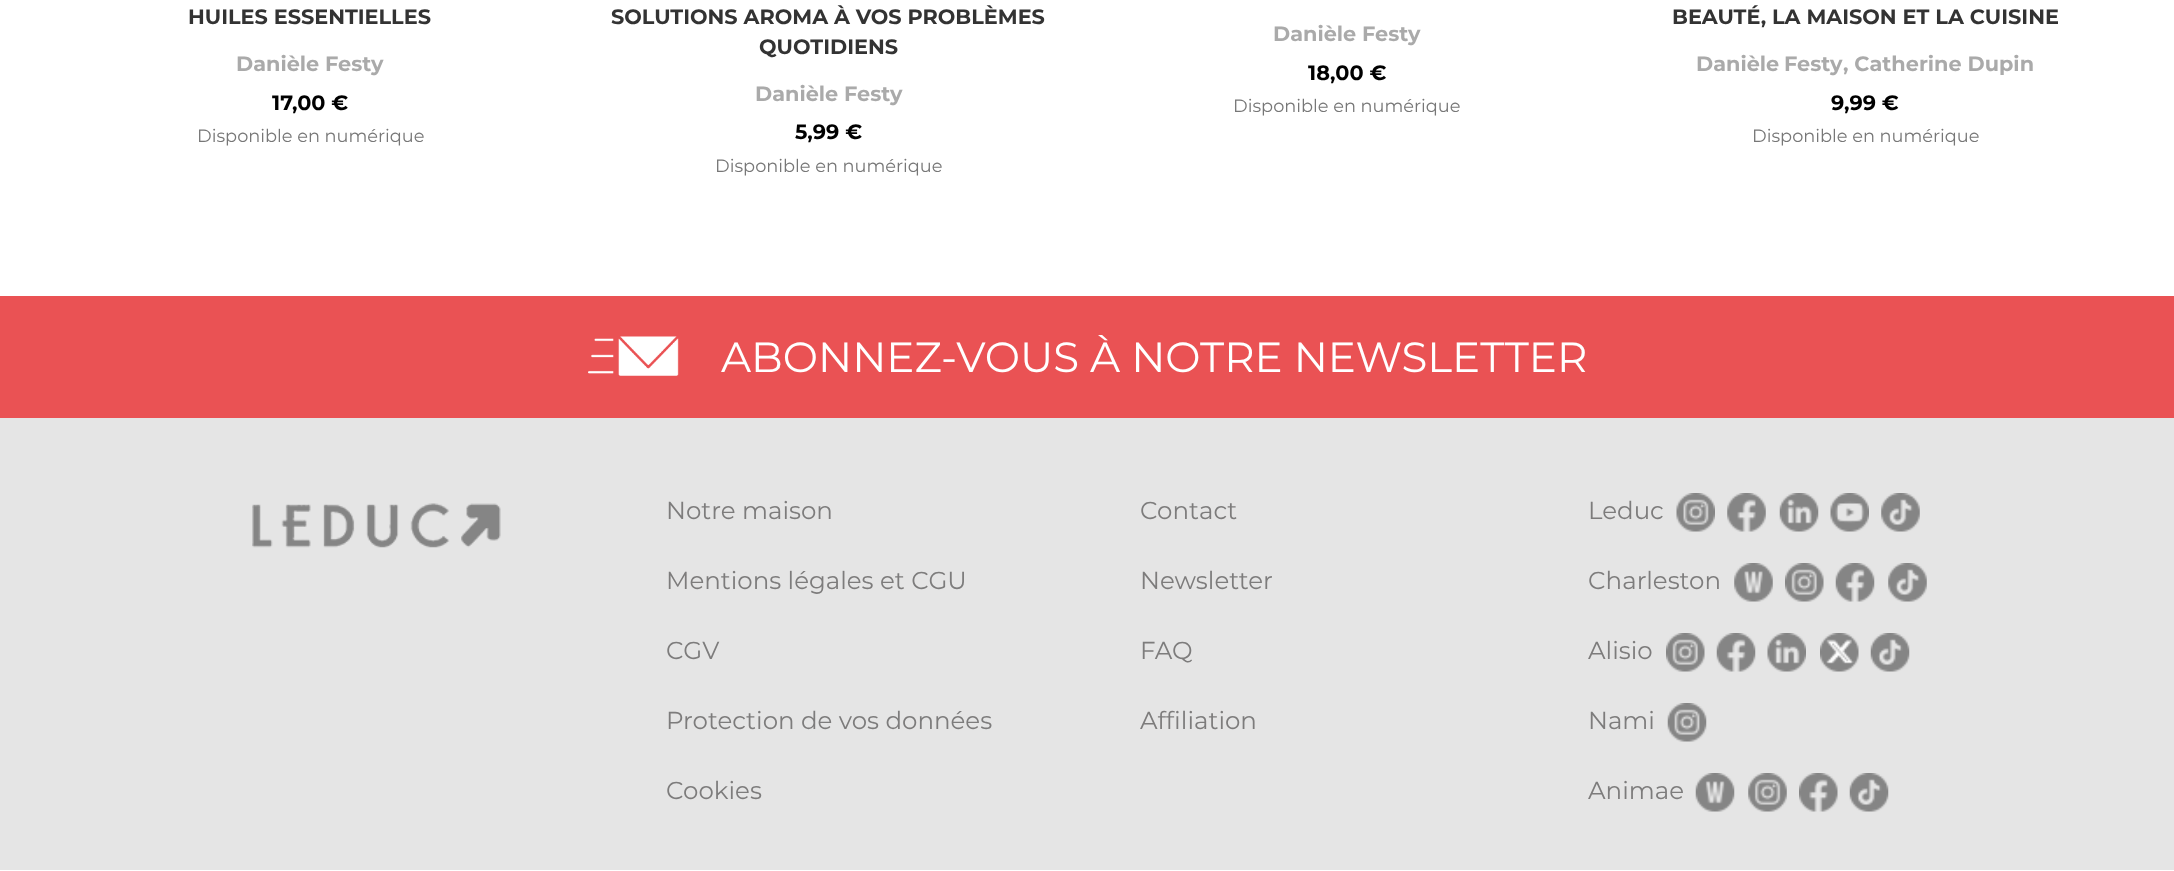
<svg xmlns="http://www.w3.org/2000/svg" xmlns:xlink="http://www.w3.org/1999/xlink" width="2174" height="871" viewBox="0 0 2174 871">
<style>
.cls-1{font:bold 20.8px Montserrat;fill:#333333}
.cls-2{font:bold 20.8px Montserrat;fill:#aaaaaa}
.cls-3{font:bold 20.8px Montserrat;fill:#000000}
.cls-4{font:17.75px Montserrat;fill:#777777}
.cls-5{font:42px Montserrat;fill:#ffffff}
.cls-6{font:24.5px Montserrat;fill:#7d7c7c}
</style>
<rect width="100%" height="100%" fill="#ffffff"/>
<rect fill="#ea5254" x="0" y="296" width="2174" height="122"/>
<image xlink:href="image0.png" x="588" y="336" width="91" height="40"/>
<rect fill="#e5e5e5" x="0" y="418" width="2174" height="452"/>
<image xlink:href="image1.png" x="252" y="503" width="249" height="45"/>
<image xlink:href="image2.png" x="1676" y="493" width="39" height="39"/>
<image xlink:href="image3.png" x="1727" y="493" width="39" height="39"/>
<image xlink:href="image4.png" x="1779" y="493" width="40" height="39"/>
<image xlink:href="image5.png" x="1830" y="493" width="39" height="39"/>
<image xlink:href="image6.png" x="1881" y="493" width="39" height="39"/>
<image xlink:href="image7.png" x="1734" y="563" width="39" height="39"/>
<image xlink:href="image8.png" x="1785" y="563" width="39" height="39"/>
<image xlink:href="image9.png" x="1835" y="563" width="40" height="39"/>
<image xlink:href="image6.png" x="1888" y="563" width="39" height="39"/>
<image xlink:href="image10.png" x="1666" y="633" width="39" height="39"/>
<image xlink:href="image9.png" x="1716" y="633" width="40" height="39"/>
<image xlink:href="image11.png" x="1767" y="633" width="39" height="39"/>
<image xlink:href="image12.png" x="1820" y="633" width="39" height="39"/>
<image xlink:href="image13.png" x="1870" y="633" width="40" height="39"/>
<image xlink:href="image14.png" x="1667" y="703" width="40" height="39"/>
<image xlink:href="image15.png" x="1695" y="773" width="40" height="39"/>
<image xlink:href="image16.png" x="1748" y="773" width="39" height="39"/>
<image xlink:href="image17.png" x="1799" y="773" width="39" height="39"/>
<image xlink:href="image18.png" x="1849" y="773" width="40" height="39"/>
<text class="cls-1" x="188" y="24">HUILES ESSENTIELLES</text>
<text class="cls-2" x="236" y="71">Danièle Festy</text>
<text class="cls-3" x="272" y="110">17,00 €</text>
<text class="cls-4" x="197" y="142">Disponible en numérique</text>
<text class="cls-1" x="611" y="24">SOLUTIONS AROMA À VOS PROBLÈMES</text>
<text class="cls-1" x="759" y="54">QUOTIDIENS</text>
<text class="cls-2" x="755" y="101">Danièle Festy</text>
<text class="cls-3" x="795" y="139">5,99 €</text>
<text class="cls-4" x="715" y="172">Disponible en numérique</text>
<text class="cls-2" x="1273" y="41">Danièle Festy</text>
<text class="cls-3" x="1308" y="80">18,00 €</text>
<text class="cls-4" x="1233" y="112">Disponible en numérique</text>
<text class="cls-1" x="1672" y="24">BEAUTÉ, LA MAISON ET LA CUISINE</text>
<text class="cls-2" x="1696" y="71" word-spacing="-1">Danièle Festy</text>
<text class="cls-2" x="1843" y="71">, Catherine Dupin</text>
<text class="cls-3" x="1831" y="110">9,99 €</text>
<text class="cls-4" x="1752" y="142">Disponible en numérique</text>
<text class="cls-5" x="721" y="372">ABONNEZ-VOUS À NOTRE NEWSLETTER</text>
<text class="cls-6" x="666" y="519">Notre maison</text>
<text class="cls-6" x="666" y="589">Mentions légales et CGU</text>
<text class="cls-6" x="666" y="659">CGV</text>
<text class="cls-6" x="666" y="729">Protection de vos données</text>
<text class="cls-6" x="666" y="799">Cookies</text>
<text class="cls-6" x="1140" y="519">Contact</text>
<text class="cls-6" x="1140" y="589">Newsletter</text>
<text class="cls-6" x="1140" y="659">FAQ</text>
<text class="cls-6" x="1140" y="729">Affiliation</text>
<text class="cls-6" x="1588" y="519">Leduc</text>
<text class="cls-6" x="1588" y="589">Charleston</text>
<text class="cls-6" x="1588" y="659">Alisio</text>
<text class="cls-6" x="1588" y="729">Nami</text>
<text class="cls-6" x="1588" y="799">Animae</text>
</svg>
